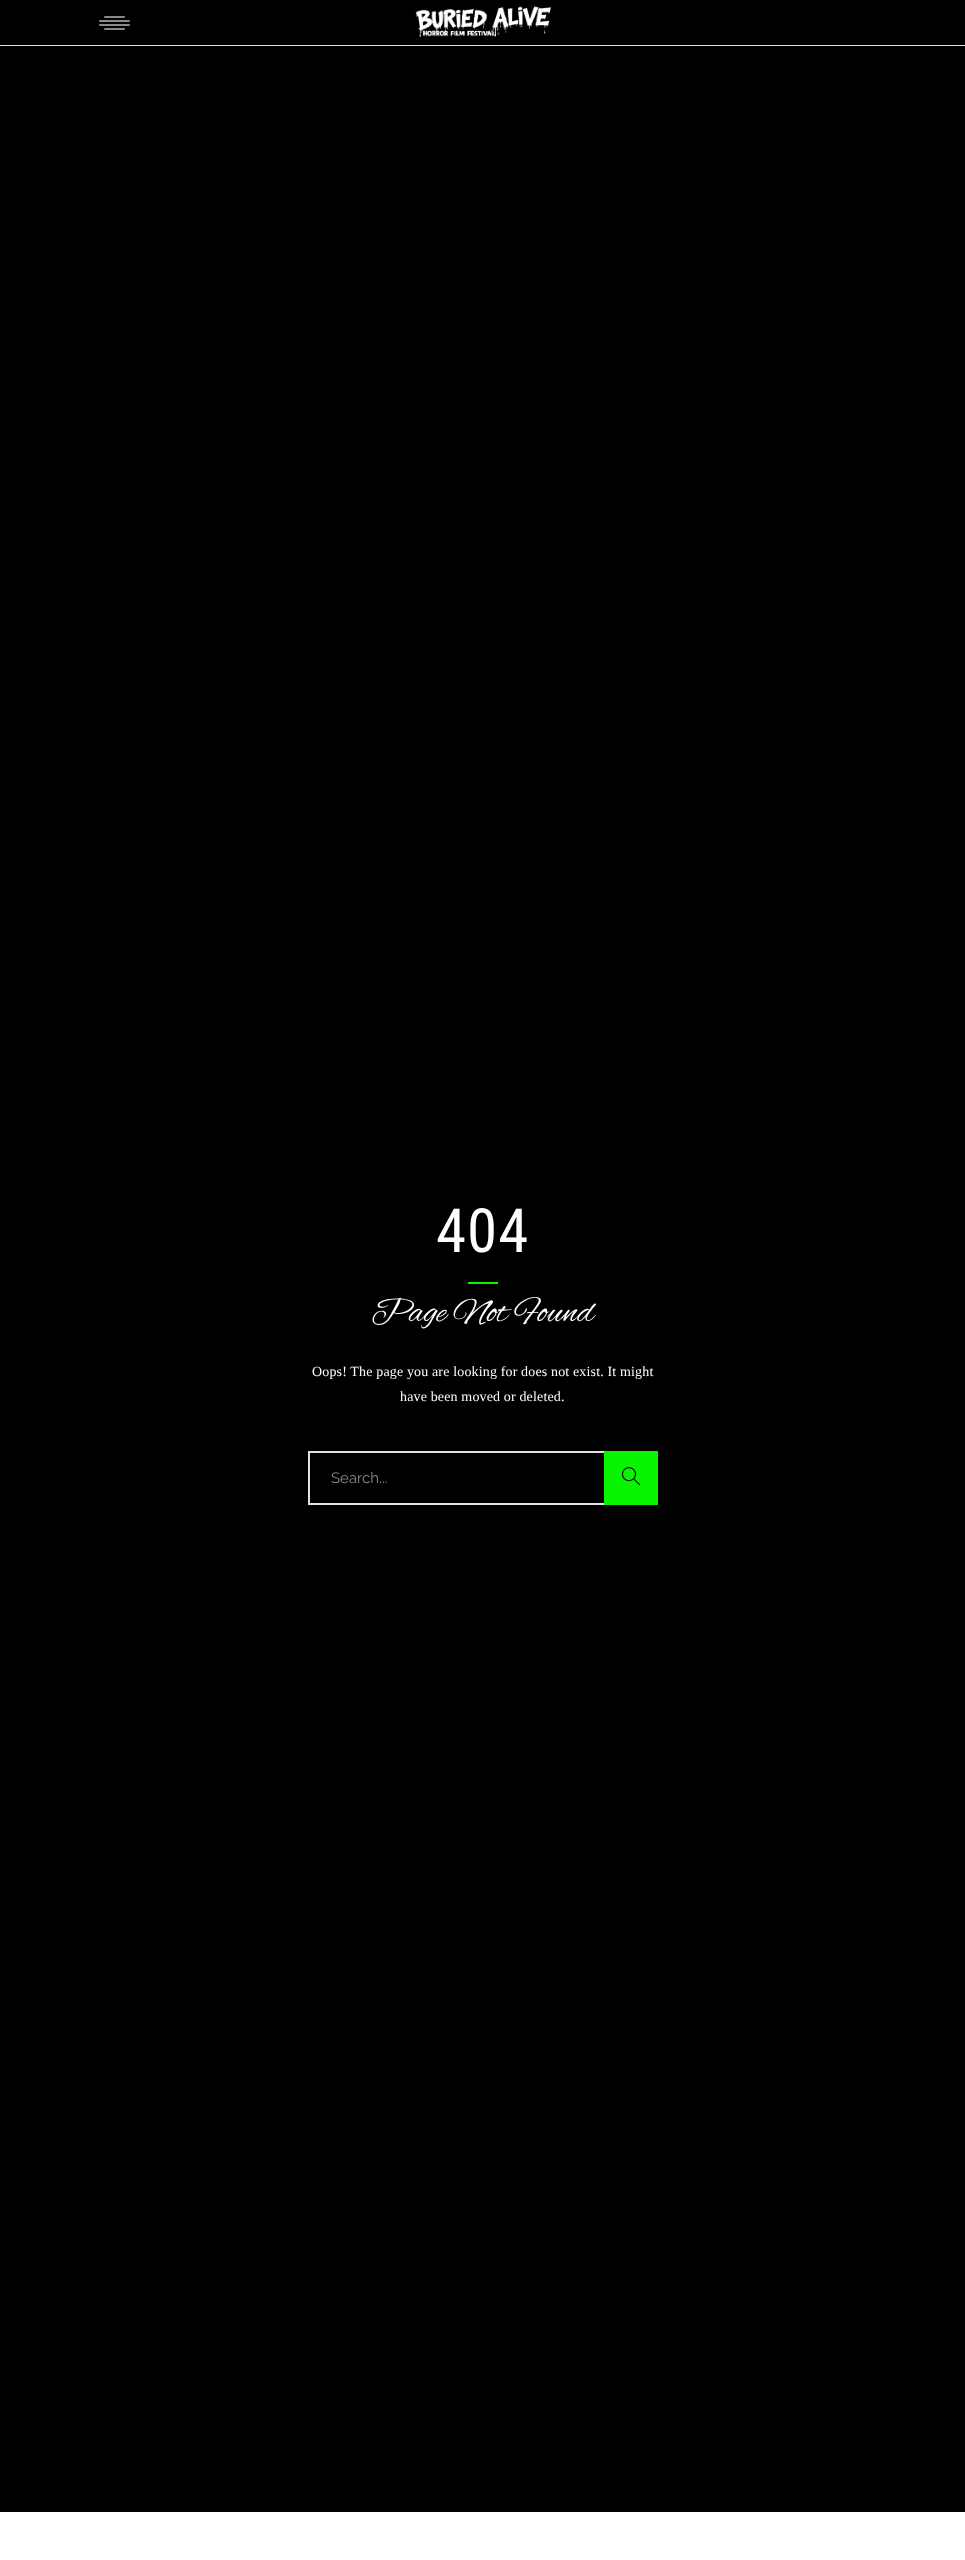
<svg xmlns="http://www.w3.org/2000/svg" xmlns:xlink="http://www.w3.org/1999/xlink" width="965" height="2560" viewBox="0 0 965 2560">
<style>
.cls-1{font:61px Roboto Condensed;letter-spacing:1px;fill:#ffffff}
.cls-2{font:36px Alex Brush;fill:#ffffff}
.cls-3{font:14px Liberation Serif;letter-spacing:0.15px;fill:#ffffff}
.cls-4{font:15px Raleway;fill:#888888}
</style>
<rect width="100%" height="100%" fill="#ffffff"/>
<rect fill="#000000" x="0" y="0" width="965" height="2512"/>
<rect fill="#e1e1e1" x="0" y="45" width="965" height="1"/>
<rect fill="#888888" x="104" y="16" width="21" height="2" rx="1"/>
<rect fill="#888888" x="99" y="20" width="31" height="2" rx="1"/>
<rect fill="#888888" x="99" y="24" width="31" height="2" rx="1"/>
<rect fill="#888888" x="104" y="28" width="21" height="2" rx="1"/>
<image xlink:href="image0.png" x="415" y="6" width="136" height="31"/>
<rect fill="#08f400" x="468" y="1282" width="30" height="2"/>
<rect fill="#e1e1e1" x="308" y="1451" width="296" height="2"/>
<rect fill="#e1e1e1" x="308" y="1503" width="296" height="2"/>
<rect fill="#e1e1e1" x="308" y="1451" width="2" height="54"/>
<rect fill="#08f400" x="604" y="1451" width="54" height="54"/>
<image xlink:href="image1.png" x="621" y="1467" width="19" height="19"/>
<text class="cls-1" x="436" y="1252">404</text>
<text class="cls-2" x="371" y="1321">Page Not Found</text>
<text class="cls-3" x="312" y="1376">Oops! The page you are looking for does not exist. It might</text>
<text class="cls-3" x="400" y="1401">have been moved or deleted.</text>
<text class="cls-4" x="331" y="1483">Search...</text>
</svg>
